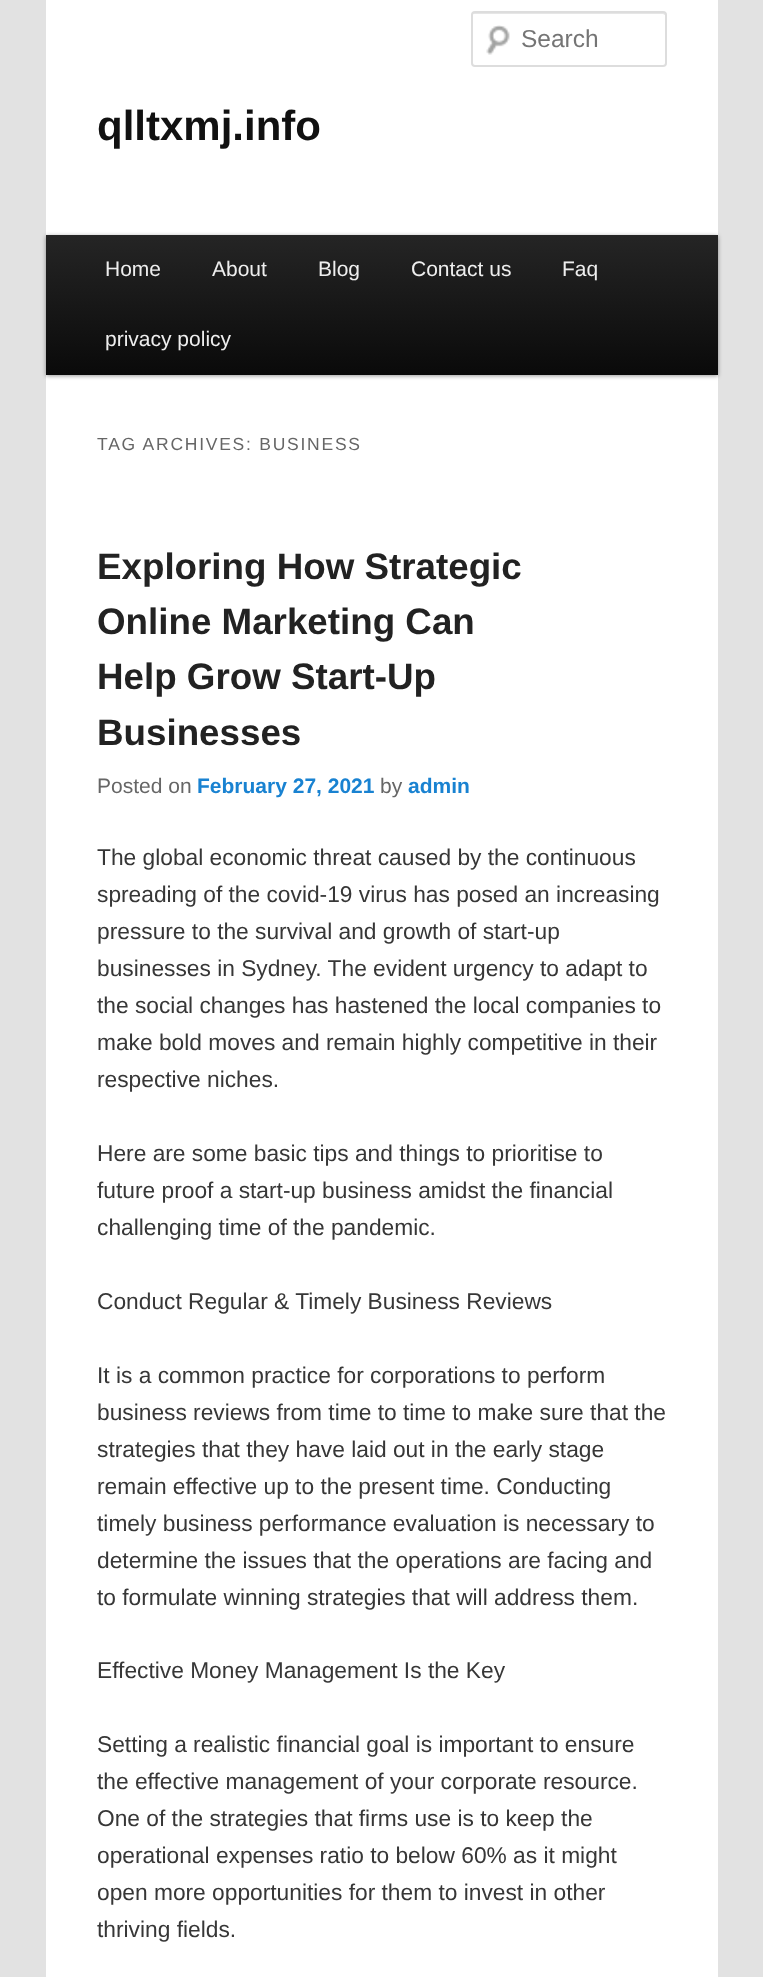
<svg xmlns="http://www.w3.org/2000/svg" xmlns:xlink="http://www.w3.org/1999/xlink" width="763" height="1977" viewBox="0 0 763 1977">
<style>
.cls-1{font:24.5px Liberation Sans;fill:#757575}
.cls-2{font:bold 42px Liberation Sans;fill:#111111}
.cls-3{font:21px Liberation Sans;fill:#eeeeee}
.cls-4{font:17.5px Liberation Sans;letter-spacing:1.75px;fill:#666666}
.cls-5{font:bold 36.75px Liberation Sans;fill:#222222}
.cls-6{font:21px Liberation Sans;fill:#666666}
.cls-7{font:bold 21px Liberation Sans;fill:#1982d1}
.cls-8{font:22.75px Liberation Sans;fill:#373737}
</style>
<defs>
<linearGradient id="g1" gradientUnits="userSpaceOnUse" x1="382" y1="234" x2="382" y2="375"><stop offset="0" stop-color="#252525"/><stop offset="1" stop-color="#0a0a0a"/></linearGradient>
</defs>
<rect width="100%" height="100%" fill="#e2e2e2"/>
<rect fill="#ffffff" x="46" y="0" width="672" height="1977"/>
<image xlink:href="image0.png" x="486" y="25" width="24" height="30"/>
<path fill="#e6e6e6" d="M474 14H663L665 15V16V14C665 13 664 12 663 12H475C474 12 473 13 473 14Z"/>
<rect fill="none" stroke="#dddddd" stroke-width="2" x="472" y="12" width="194" height="54" rx="3"/>
<rect fill="#000000" fill-opacity="0.4" filter="blur(2px)" x="46" y="236" width="672" height="140"/>
<rect fill="url(#g1)" x="46" y="235" width="672" height="140"/>
<text class="cls-1" x="521" y="47">Search</text>
<text class="cls-2" x="97" y="140">qlltxmj.info</text>
<text class="cls-3" x="105" y="276">Home</text>
<text class="cls-3" x="212" y="276">About</text>
<text class="cls-3" x="318" y="276">Blog</text>
<text class="cls-3" x="411" y="276">Contact us</text>
<text class="cls-3" x="562" y="276">Faq</text>
<text class="cls-3" x="105" y="346">privacy policy</text>
<text class="cls-4" x="97" y="450">TAG ARCHIVES: BUSINESS</text>
<text class="cls-5"><tspan x="97" y="579">Exploring How Strategic</tspan><tspan x="97" y="634">Online Marketing Can</tspan><tspan x="97" y="689">Help Grow Start-Up</tspan><tspan x="97" y="745">Businesses</tspan></text>
<text class="cls-6" x="97" y="793">Posted on</text>
<text class="cls-7" x="197" y="793">February 27, 2021</text>
<text class="cls-6" x="380" y="793">by</text>
<text class="cls-7" x="408" y="793">admin</text>
<text class="cls-8"><tspan x="97" y="865">The global economic threat caused by the continuous</tspan><tspan x="97" y="902">spreading of the covid-19 virus has posed an increasing</tspan><tspan x="97" y="939">pressure to the survival and growth of start-up</tspan><tspan x="97" y="976">businesses in Sydney. The evident urgency to adapt to</tspan><tspan x="97" y="1013">the social changes has hastened the local companies to</tspan><tspan x="97" y="1050">make bold moves and remain highly competitive in their</tspan><tspan x="97" y="1087">respective niches.</tspan></text>
<text class="cls-8"><tspan x="97" y="1161">Here are some basic tips and things to prioritise to</tspan><tspan x="97" y="1198">future proof a start-up business amidst the financial</tspan><tspan x="97" y="1235">challenging time of the pandemic.</tspan></text>
<text class="cls-8" x="97" y="1309">Conduct Regular &amp; Timely Business Reviews</text>
<text class="cls-8"><tspan x="97" y="1383">It is a common practice for corporations to perform</tspan><tspan x="97" y="1420">business reviews from time to time to make sure that the</tspan><tspan x="97" y="1457">strategies that they have laid out in the early stage</tspan><tspan x="97" y="1494">remain effective up to the present time. Conducting</tspan><tspan x="97" y="1531">timely business performance evaluation is necessary to</tspan><tspan x="97" y="1568">determine the issues that the operations are facing and</tspan><tspan x="97" y="1605">to formulate winning strategies that will address them.</tspan></text>
<text class="cls-8" x="97" y="1678">Effective Money Management Is the Key</text>
<text class="cls-8"><tspan x="97" y="1752">Setting a realistic financial goal is important to ensure</tspan><tspan x="97" y="1789">the effective management of your corporate resource.</tspan><tspan x="97" y="1826">One of the strategies that firms use is to keep the</tspan><tspan x="97" y="1863">operational expenses ratio to below 60% as it might</tspan><tspan x="97" y="1900">open more opportunities for them to invest in other</tspan><tspan x="97" y="1937">thriving fields.</tspan></text>
</svg>
